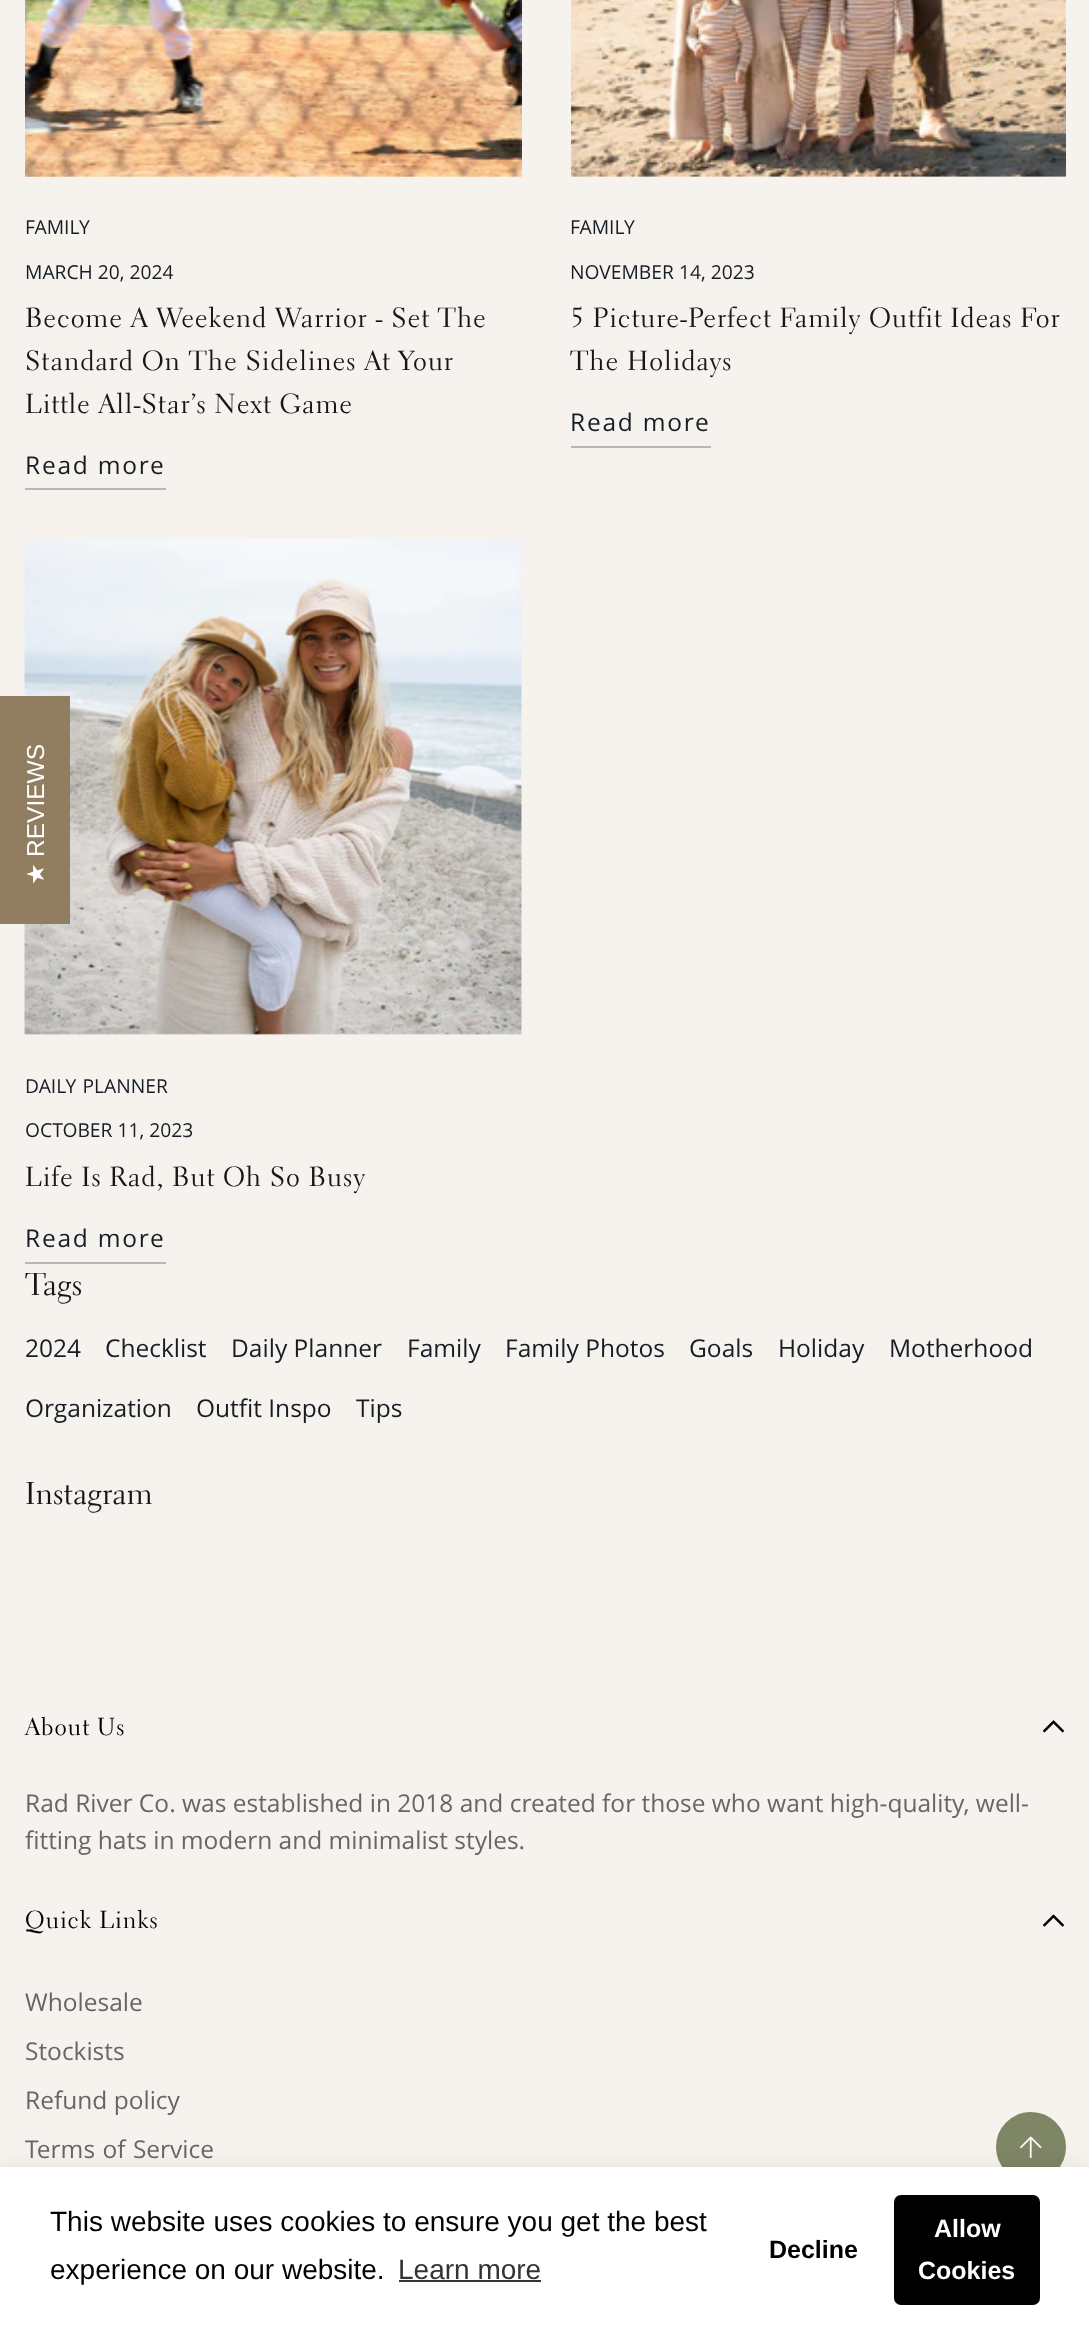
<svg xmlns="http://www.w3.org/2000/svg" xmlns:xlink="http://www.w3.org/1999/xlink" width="1089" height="2332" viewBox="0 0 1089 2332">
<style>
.cls-1{font:19.25px Open Sans;fill:#161d25}
.cls-2{font:27.6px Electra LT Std;letter-spacing:0.9px;fill:#171717}
.cls-3{font:24.5px Open Sans;letter-spacing:1.75px;fill:#161d25}
.cls-4{font:31.5px Electra LT Std;fill:#171717}
.cls-5{font:24.5px Open Sans;fill:#161d25}
.cls-6{font:24.5px Liberation Sans;fill:#ffffff}
.cls-7{font:24.5px DejaVu Sans;fill:#ffffff}
.cls-8{font:24.5px Electra LT Std;letter-spacing:0.9px;fill:#000000}
.cls-9{font:24.5px Open Sans;fill:#666666}
.cls-10{font:28px Liberation Sans;fill:#000000}
.cls-11{font:28px Liberation Sans;fill:#333333}
.cls-12{font:bold 25px Liberation Sans;fill:#000000}
.cls-13{font:bold 25px Liberation Sans;fill:#ffffff}
</style>
<rect width="100%" height="100%" fill="#f6f3ef"/>
<image xlink:href="image0.png" x="25" y="0" width="497" height="177"/>
<rect fill="#b9b6b3" x="25" y="488" width="141" height="2"/>
<image xlink:href="image1.png" x="571" y="0" width="495" height="177"/>
<rect fill="#b9b6b3" x="571" y="446" width="140" height="2"/>
<image xlink:href="image2.png" x="24" y="539" width="498" height="496"/>
<rect fill="#b9b6b3" x="25" y="1262" width="141" height="2"/>
<rect fill="#917d60" x="0" y="696" width="70" height="228"/>
<image xlink:href="image3.png" x="1043" y="1720" width="21" height="13"/>
<image xlink:href="image4.png" x="1043" y="1914" width="21" height="13"/>
<circle fill="#7e8666" stroke="#7e8666" stroke-width="2" cx="1031" cy="2147" r="34"/>
<image xlink:href="image5.png" x="1020" y="2136" width="22" height="22"/>
<rect fill="#000000" fill-opacity="0.15" filter="blur(13px)" x="0" y="2175" width="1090" height="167"/>
<rect fill="#ffffff" x="0" y="2167" width="1089" height="165"/>
<rect fill="#333333" x="399" y="2280" width="142" height="2"/>
<rect fill="#000000" x="894" y="2195" width="146" height="110" rx="7"/>
<text class="cls-1" x="25" y="234">FAMILY</text>
<text class="cls-1" x="25" y="279">MARCH 20, 2024</text>
<text class="cls-2"><tspan x="25" y="327">Become A Weekend Warrior - Set The</tspan><tspan x="25" y="370">Standard On The Sidelines At Your</tspan><tspan x="25" y="413">Little All-Star’s Next Game</tspan></text>
<text class="cls-3" x="25" y="474">Read more</text>
<text class="cls-1" x="570" y="234">FAMILY</text>
<text class="cls-1" x="570" y="279">NOVEMBER 14, 2023</text>
<text class="cls-2"><tspan x="570" y="327">5 Picture-Perfect Family Outfit Ideas For</tspan><tspan x="570" y="370">The Holidays</tspan></text>
<text class="cls-3" x="570" y="431">Read more</text>
<text class="cls-1" x="25" y="1093" word-spacing="1">DAILY PLANNER</text>
<text class="cls-1" x="25" y="1137">OCTOBER 11, 2023</text>
<text class="cls-2" x="25" y="1186">Life Is Rad, But Oh So Busy</text>
<text class="cls-3" x="25" y="1247">Read more</text>
<text class="cls-4" x="25" y="1295">Tags</text>
<text class="cls-5" x="25" y="1357">2024</text>
<text class="cls-5" x="105" y="1357">Checklist</text>
<text class="cls-5" x="231" y="1357">Daily Planner</text>
<text class="cls-5" x="407" y="1357">Family</text>
<text class="cls-5" x="505" y="1357">Family Photos</text>
<text class="cls-5" x="689" y="1357">Goals</text>
<text class="cls-5" x="778" y="1357">Holiday</text>
<text class="cls-5" x="889" y="1357">Motherhood</text>
<text class="cls-5" x="25" y="1417">Organization</text>
<text class="cls-5" x="196" y="1417">Outfit Inspo</text>
<text class="cls-5" x="356" y="1417">Tips</text>
<text class="cls-4" x="25" y="1504">Instagram</text>
<text class="cls-6" x="44" y="857" transform="rotate(-90 44 857)">REVIEWS</text>
<text class="cls-7" x="44" y="885" transform="rotate(-90 44 885)">★</text>
<text class="cls-8" x="25" y="1735">About Us</text>
<text class="cls-9"><tspan x="25" y="1812">Rad River Co. was established in 2018 and created for those who want high-quality, well-</tspan><tspan x="25" y="1849">fitting hats in modern and minimalist styles.</tspan></text>
<text class="cls-8" x="25" y="1928">Quick Links</text>
<text class="cls-9" x="25" y="2011">Wholesale</text>
<text class="cls-9" x="25" y="2060">Stockists</text>
<text class="cls-9" x="25" y="2109">Refund policy</text>
<text class="cls-9" x="25" y="2158" word-spacing="1">Terms of Service</text>
<text class="cls-10"><tspan x="50" y="2231">This website uses cookies to ensure you get the best</tspan><tspan x="50" y="2279">experience on our website.</tspan></text>
<text class="cls-11" x="398" y="2279">Learn more</text>
<text class="cls-12" x="769" y="2258">Decline</text>
<text class="cls-13" x="934" y="2237">Allow</text>
<text class="cls-13" x="918" y="2279">Cookies</text>
</svg>
